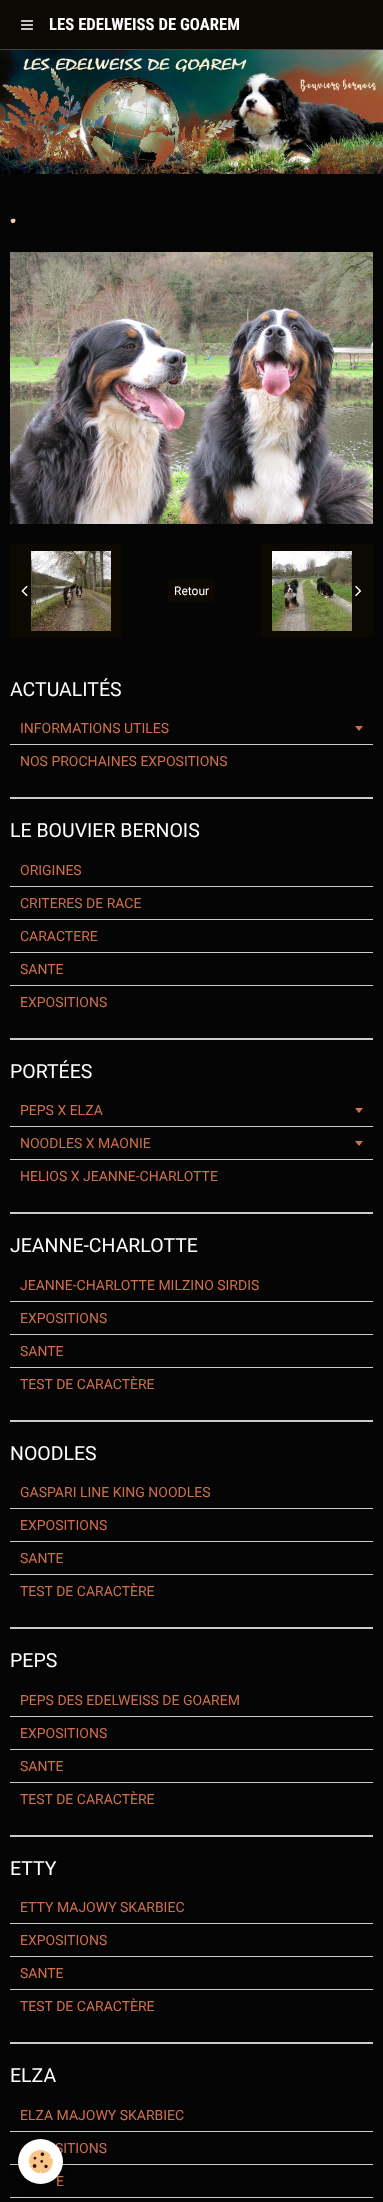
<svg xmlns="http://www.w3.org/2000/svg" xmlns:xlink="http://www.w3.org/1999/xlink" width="383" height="2202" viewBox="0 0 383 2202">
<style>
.cls-1{font:bold 16.75px Roboto Condensed;fill:#ffffff}
.cls-2{font:30px Courgette;fill:#f0cda7}
.cls-3{font:12px Roboto;fill:#ffffff}
.cls-4{font:19.5px Roboto;fill:#ffffff}
.cls-5{font:14px Roboto;fill:#ce704d}
</style>
<rect width="100%" height="100%" fill="#060505"/>
<rect fill="#0b0902" x="0" y="0" width="383" height="49"/>
<rect fill="#41413d" x="0" y="49" width="383" height="1"/>
<image xlink:href="image0.png" x="21" y="20" width="12" height="10"/>
<image xlink:href="image1.png" x="0" y="50" width="383" height="124"/>
<image xlink:href="image2.png" x="10" y="252" width="363" height="272"/>
<rect fill="#0b0902" x="10" y="544" width="112" height="94" rx="2.5"/>
<image xlink:href="image3.png" x="21" y="585" width="7" height="12"/>
<image xlink:href="image4.png" x="31" y="551" width="80" height="80"/>
<rect fill="#0b0902" x="168" y="579" width="47" height="24" rx="2"/>
<rect fill="#0b0902" x="261" y="544" width="112" height="94" rx="2.5"/>
<image xlink:href="image5.png" x="272" y="551" width="80" height="80"/>
<image xlink:href="image6.png" x="355" y="585" width="7" height="12"/>
<rect fill="#cccccc" x="10" y="797" width="363" height="2"/>
<rect fill="#cccccc" x="10" y="744" width="363" height="1"/>
<path fill="#ce704d" d="M355 726H363L359 731Z"/>
<rect fill="#cccccc" x="10" y="1038" width="363" height="2"/>
<rect fill="#cccccc" x="10" y="886" width="363" height="1"/>
<rect fill="#cccccc" x="10" y="919" width="363" height="1"/>
<rect fill="#cccccc" x="10" y="952" width="363" height="1"/>
<rect fill="#cccccc" x="10" y="985" width="363" height="1"/>
<rect fill="#cccccc" x="10" y="1212" width="363" height="2"/>
<rect fill="#cccccc" x="10" y="1126" width="363" height="1"/>
<path fill="#ce704d" d="M355 1108H363L359 1113Z"/>
<rect fill="#cccccc" x="10" y="1159" width="363" height="1"/>
<path fill="#ce704d" d="M355 1141H363L359 1146Z"/>
<rect fill="#cccccc" x="10" y="1420" width="363" height="2"/>
<rect fill="#cccccc" x="10" y="1301" width="363" height="1"/>
<rect fill="#cccccc" x="10" y="1334" width="363" height="1"/>
<rect fill="#cccccc" x="10" y="1367" width="363" height="1"/>
<rect fill="#cccccc" x="10" y="1627" width="363" height="2"/>
<rect fill="#cccccc" x="10" y="1508" width="363" height="1"/>
<rect fill="#cccccc" x="10" y="1541" width="363" height="1"/>
<rect fill="#cccccc" x="10" y="1574" width="363" height="1"/>
<rect fill="#cccccc" x="10" y="1835" width="363" height="2"/>
<rect fill="#cccccc" x="10" y="1716" width="363" height="1"/>
<rect fill="#cccccc" x="10" y="1749" width="363" height="1"/>
<rect fill="#cccccc" x="10" y="1782" width="363" height="1"/>
<rect fill="#cccccc" x="10" y="2042" width="363" height="2"/>
<rect fill="#cccccc" x="10" y="1923" width="363" height="1"/>
<rect fill="#cccccc" x="10" y="1956" width="363" height="1"/>
<rect fill="#cccccc" x="10" y="1989" width="363" height="1"/>
<rect fill="#cccccc" x="10" y="2131" width="363" height="1"/>
<rect fill="#cccccc" x="10" y="2164" width="363" height="1"/>
<rect fill="#cccccc" x="10" y="2197" width="363" height="1"/>
<rect fill="#000000" fill-opacity="0.24" filter="blur(5px)" x="18" y="2142" width="45" height="45" rx="22.5"/>
<text class="cls-1" x="49" y="30">LES EDELWEISS DE GOAREM</text>
<text class="cls-2" x="10" y="223">.</text>
<text class="cls-3" x="174" y="595">Retour</text>
<text class="cls-4" x="10" y="696">ACTUALITÉS</text>
<text class="cls-5" x="20" y="733">INFORMATIONS UTILES</text>
<text class="cls-5" x="20" y="766">NOS PROCHAINES EXPOSITIONS</text>
<text class="cls-4" x="10" y="837">LE BOUVIER BERNOIS</text>
<text class="cls-5" x="20" y="875">ORIGINES</text>
<text class="cls-5" x="20" y="908">CRITERES DE RACE</text>
<text class="cls-5" x="20" y="941">CARACTERE</text>
<text class="cls-5" x="20" y="974">SANTE</text>
<text class="cls-5" x="20" y="1007">EXPOSITIONS</text>
<text class="cls-4" x="10" y="1078">PORTÉES</text>
<text class="cls-5" x="20" y="1115">PEPS X ELZA</text>
<text class="cls-5" x="20" y="1148">NOODLES X MAONIE</text>
<text class="cls-5" x="20" y="1181">HELIOS X JEANNE-CHARLOTTE</text>
<text class="cls-4" x="10" y="1252">JEANNE-CHARLOTTE</text>
<text class="cls-5" x="20" y="1290">JEANNE-CHARLOTTE MILZINO SIRDIS</text>
<text class="cls-5" x="20" y="1323">EXPOSITIONS</text>
<text class="cls-5" x="20" y="1356">SANTE</text>
<text class="cls-5" x="20" y="1389">TEST DE CARACTÈRE</text>
<text class="cls-4" x="10" y="1460">NOODLES</text>
<text class="cls-5" x="20" y="1497">GASPARI LINE KING NOODLES</text>
<text class="cls-5" x="20" y="1530">EXPOSITIONS</text>
<text class="cls-5" x="20" y="1563">SANTE</text>
<text class="cls-5" x="20" y="1596">TEST DE CARACTÈRE</text>
<text class="cls-4" x="10" y="1667">PEPS</text>
<text class="cls-5" x="20" y="1705">PEPS DES EDELWEISS DE GOAREM</text>
<text class="cls-5" x="20" y="1738">EXPOSITIONS</text>
<text class="cls-5" x="20" y="1771">SANTE</text>
<text class="cls-5" x="20" y="1804">TEST DE CARACTÈRE</text>
<text class="cls-4" x="10" y="1875">ETTY</text>
<text class="cls-5" x="20" y="1912">ETTY MAJOWY SKARBIEC</text>
<text class="cls-5" x="20" y="1945">EXPOSITIONS</text>
<text class="cls-5" x="20" y="1978">SANTE</text>
<text class="cls-5" x="20" y="2011">TEST DE CARACTÈRE</text>
<text class="cls-4" x="10" y="2082">ELZA</text>
<text class="cls-5" x="20" y="2120">ELZA MAJOWY SKARBIEC</text>
<text class="cls-5" x="55" y="2153">SITIONS</text>
<text class="cls-5" x="56" y="2186">E</text>
<circle fill="#ffffff" cx="40.5" cy="2161.5" r="22.5"/>
<image xlink:href="image7.png" x="28" y="2149" width="25" height="25"/>
</svg>
